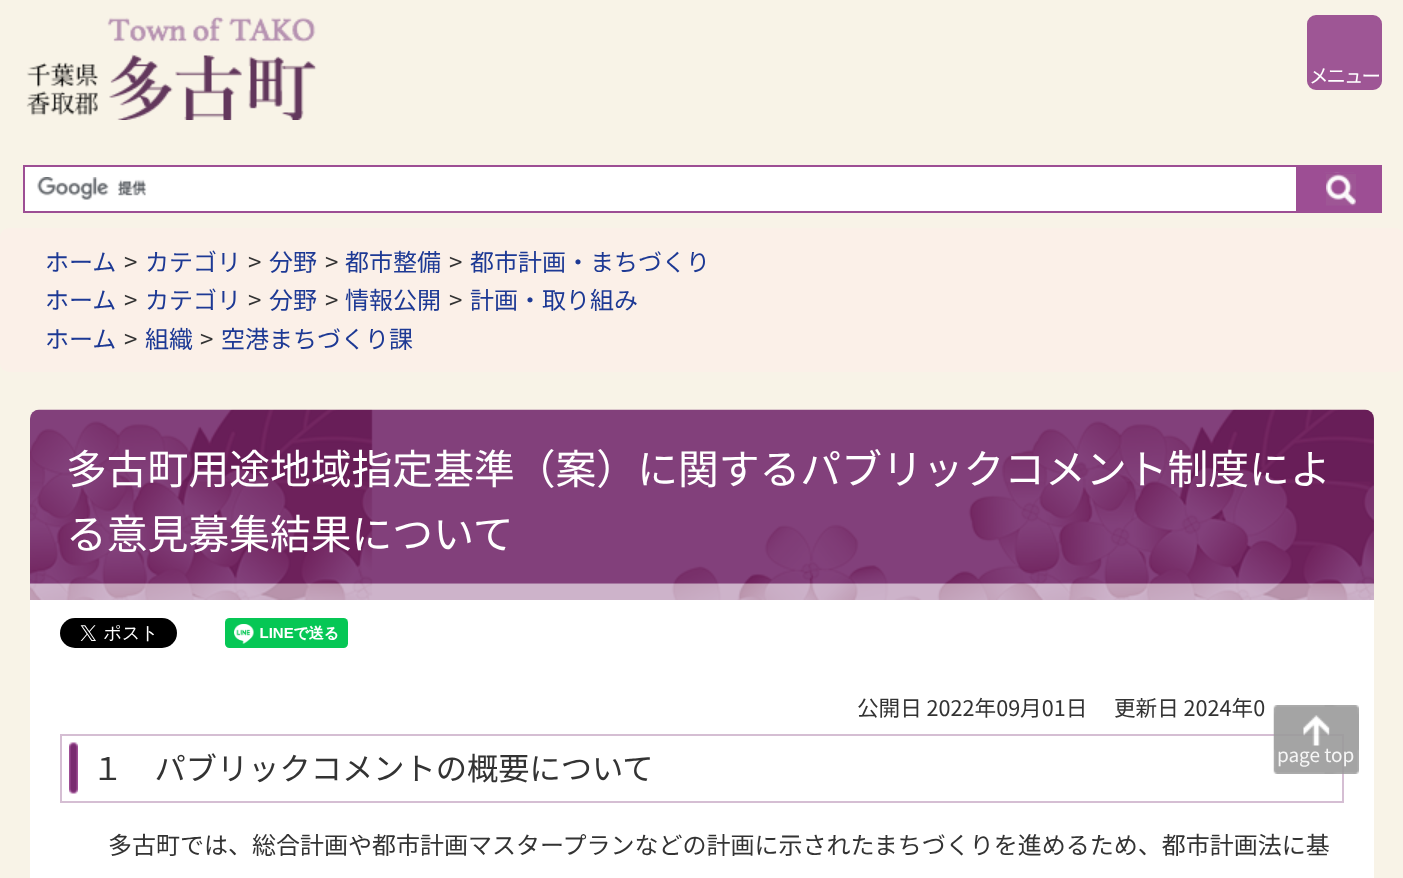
<svg xmlns="http://www.w3.org/2000/svg" xmlns:xlink="http://www.w3.org/1999/xlink" width="1403" height="878" viewBox="0 0 1403 878">
<style>
.cls-1{font:100 19.5px Noto Sans JP;letter-spacing:-2px;fill:#ffffff}
.cls-2{font:100 24px Noto Sans JP;fill:#1d3994}
.cls-3{font:100 24px Noto Sans JP;fill:#333333}
.cls-4{font:100 40.8px Noto Sans JP;fill:#ffffff}
.cls-5{font:100 21.6px Noto Sans JP;fill:#333333}
.cls-6{font:100 31.25px Noto Sans JP;fill:#333333}
.cls-7{font:100 19px Noto Sans JP;fill:#f6f6f6}
</style>
<rect width="100%" height="100%" fill="#f8f3e7"/>
<image xlink:href="image0.png" x="26" y="16" width="291" height="104"/>
<rect fill="#ffffff" stroke="#9d4e94" stroke-width="2" x="24" y="166" width="1273" height="46"/>
<image xlink:href="image1.png" x="37" y="177" width="110" height="23"/>
<rect fill="#9d4e94" x="1298" y="165" width="84" height="48"/>
<image xlink:href="image2.png" x="1324" y="172" width="31" height="1"/>
<image xlink:href="image3.png" x="1326" y="174" width="30" height="32"/>
<rect fill="#9e5695" stroke="#9e5695" stroke-width="2" x="1308" y="16" width="73" height="73" rx="8"/>
<rect fill="#fbf0e8" x="0" y="228" width="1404" height="144" rx="9"/>
<image xlink:href="image4.png" x="30" y="409" width="1344" height="191"/>
<rect fill="#ffffff" x="30" y="600" width="1344" height="278"/>
<image xlink:href="image5.png" x="60" y="618" width="117" height="30"/>
<image xlink:href="image6.png" x="225" y="618" width="123" height="30"/>
<image xlink:href="image7.png" x="69" y="742" width="9" height="52"/>
<rect fill="none" stroke="#d5bed3" stroke-width="2" x="61" y="735" width="1282" height="67"/>
<image xlink:href="image8.png" x="1273" y="705" width="86" height="69"/>
<text class="cls-1" x="1309" y="83">メニュー</text>
<text class="cls-2" x="45" y="271">ホーム</text>
<text class="cls-3" x="124" y="271">&gt;</text>
<text class="cls-2" x="145" y="271">カテゴリ</text>
<text class="cls-3" x="248" y="271">&gt;</text>
<text class="cls-2" x="269" y="271">分野</text>
<text class="cls-3" x="325" y="271">&gt;</text>
<text class="cls-2" x="345" y="271">都市整備</text>
<text class="cls-3" x="449" y="271">&gt;</text>
<text class="cls-2" x="470" y="271">都市計画・まちづくり</text>
<text class="cls-2" x="45" y="309">ホーム</text>
<text class="cls-3" x="124" y="309">&gt;</text>
<text class="cls-2" x="145" y="309">カテゴリ</text>
<text class="cls-3" x="248" y="309">&gt;</text>
<text class="cls-2" x="269" y="309">分野</text>
<text class="cls-3" x="325" y="309">&gt;</text>
<text class="cls-2" x="345" y="309">情報公開</text>
<text class="cls-3" x="449" y="309">&gt;</text>
<text class="cls-2" x="470" y="309">計画・取り組み</text>
<text class="cls-2" x="45" y="348">ホーム</text>
<text class="cls-3" x="124" y="348">&gt;</text>
<text class="cls-2" x="145" y="348">組織</text>
<text class="cls-3" x="200" y="348">&gt;</text>
<text class="cls-2" x="221" y="348">空港まちづくり課</text>
<text class="cls-4"><tspan x="66" y="484">多古町用途地域指定基準（案）に関するパブリックコメント制度によ</tspan><tspan x="66" y="549">る意見募集結果について</tspan></text>
<text class="cls-5" x="857" y="716">公開日 2022年09月01日</text>
<text class="cls-5" x="1114" y="716">更新日 2024年0</text>
<text class="cls-6" x="92" y="780">１　パブリックコメントの概要について</text>
<text class="cls-3" x="108" y="854">多古町では、総合計画や都市計画マスタープランなどの計画に示されたまちづくりを進めるため、都市計画法に基</text>
<text class="cls-7" x="1277" y="762">page top</text>
</svg>
